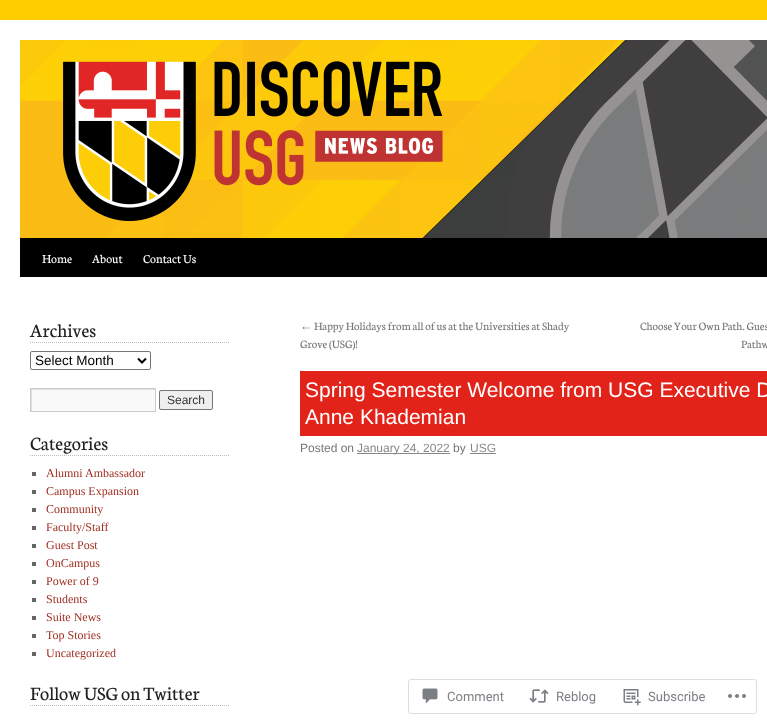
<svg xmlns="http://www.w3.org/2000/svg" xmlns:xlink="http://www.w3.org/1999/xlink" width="767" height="724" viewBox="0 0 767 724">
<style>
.cls-1{font:13px Neuton;fill:#ffffff}
.cls-2{font:20px Neuton;fill:#222222}
.cls-3{font:13.5px Liberation Sans;fill:#000000}
.cls-4{font:12px Liberation Sans;fill:#333333}
.cls-5{font:12px Liberation Serif;fill:#9f2e21}
.cls-6{font:12px Liberation Serif;fill:#777777}
.cls-7{font:12px Neuton;fill:#777777}
.cls-8{font:21px Liberation Sans;fill:#ffffff}
.cls-9{font:12px Liberation Sans;fill:#777777}
.cls-10{font:12px Liberation Sans;fill:#888888}
.cls-11{font:13px Roboto;fill:#7b7f85}
</style>
<defs>
<clipPath id="clip1"><rect x="31" y="389" width="124" height="22"/></clipPath>
</defs>
<rect width="100%" height="100%" fill="#ffcd00"/>
<rect fill="#ffffff" x="0" y="20" width="767" height="704"/>
<rect fill="#000000" x="20" y="238" width="747" height="39"/>
<image xlink:href="image0.png" x="20" y="40" width="747" height="198"/>
<path fill="none" stroke="#c4bcb0" stroke-dasharray="1 1" d="M30 342.5H230"/>
<rect fill="none" stroke="#767676" x="30.5" y="351.5" width="120" height="18" rx="1.5"/>
<path fill="none" stroke="#000000" stroke-width="2" d="M138 358.5L142 362.5L146 358.5"/>
<rect fill="#f9f9f9" x="32" y="390" width="123" height="21"/>
<g clip-path="url(#clip1)">
<path fill="#e0e0e0" fill-rule="evenodd" d="M-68 290H254V510H-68ZM32 390H156V412H32Z"/>
</g>
<rect fill="none" stroke="#cccccc" x="30.5" y="388.5" width="125" height="23"/>
<rect fill="#efefef" stroke="#767676" x="159.5" y="390.5" width="53" height="19" rx="1.5"/>
<path fill="none" stroke="#c4bcb0" stroke-dasharray="1 1" d="M30 455.5H230"/>
<rect fill="#666666" x="32" y="472" width="4" height="4"/>
<rect fill="#666666" x="32" y="490" width="4" height="4"/>
<rect fill="#666666" x="32" y="508" width="4" height="4"/>
<rect fill="#666666" x="32" y="526" width="4" height="4"/>
<rect fill="#666666" x="32" y="544" width="4" height="4"/>
<rect fill="#666666" x="32" y="562" width="4" height="4"/>
<rect fill="#666666" x="32" y="580" width="4" height="4"/>
<rect fill="#666666" x="32" y="598" width="4" height="4"/>
<rect fill="#666666" x="32" y="616" width="4" height="4"/>
<rect fill="#666666" x="32" y="634" width="4" height="4"/>
<rect fill="#666666" x="32" y="652" width="4" height="4"/>
<path fill="none" stroke="#c4bcb0" stroke-dasharray="1 1" d="M30 705.5H230"/>
<rect fill="#e2231a" x="300" y="371" width="467" height="65"/>
<rect fill="#888888" x="357" y="453" width="93" height="1"/>
<rect fill="#888888" x="470" y="453" width="26" height="1"/>
<rect fill="none" stroke="#dddddf" x="408.5" y="679.5" width="348" height="34" rx="2.5"/>
<image xlink:href="image1.png" x="422" y="688" width="16" height="16"/>
<image xlink:href="image2.png" x="529" y="689" width="20" height="14"/>
<image xlink:href="image3.png" x="623" y="689" width="18" height="17"/>
<image xlink:href="image4.png" x="728" y="694" width="18" height="4"/>
<text class="cls-1" x="42" y="263">Home</text>
<text class="cls-1" x="92" y="263">About</text>
<text class="cls-1" x="143" y="263">Contact Us</text>
<text class="cls-2" x="30" y="337">Archives</text>
<text class="cls-3" x="35" y="365">Select Month</text>
<text class="cls-4" x="167" y="404">Search</text>
<text class="cls-2" x="30" y="450">Categories</text>
<text class="cls-5"><tspan x="46" y="477">Alumni Ambassador</tspan><tspan x="46" y="495">Campus Expansion</tspan><tspan x="46" y="513">Community</tspan><tspan x="46" y="531">Faculty/Staff</tspan><tspan x="46" y="549">Guest Post</tspan><tspan x="46" y="567">OnCampus</tspan><tspan x="46" y="585">Power of 9</tspan><tspan x="46" y="603">Students</tspan><tspan x="46" y="621">Suite News</tspan><tspan x="46" y="639">Top Stories</tspan><tspan x="46" y="657">Uncategorized</tspan></text>
<text class="cls-2" x="30" y="700">Follow USG on Twitter</text>
<text class="cls-6" x="300" y="330">←</text>
<text class="cls-7" x="314" y="330">Happy Holidays from all of us at the Universities at Shady</text>
<text class="cls-7" x="300" y="348">Grove (USG)!</text>
<text class="cls-7" x="640" y="330">Choose Your Own Path. Gues</text>
<text class="cls-7" x="741" y="348">Pathw</text>
<text class="cls-8"><tspan x="305" y="397">Spring Semester Welcome from USG Executive D</tspan><tspan x="305" y="424">Anne Khademian</tspan></text>
<text class="cls-9" x="300" y="452">Posted on</text>
<text class="cls-10" x="357" y="452">January 24, 2022</text>
<text class="cls-9" x="453" y="452">by</text>
<text class="cls-10" x="470" y="452">USG</text>
<text class="cls-11" x="447" y="701">Comment</text>
<text class="cls-11" x="556" y="701">Reblog</text>
<text class="cls-11" x="648" y="701">Subscribe</text>
</svg>
